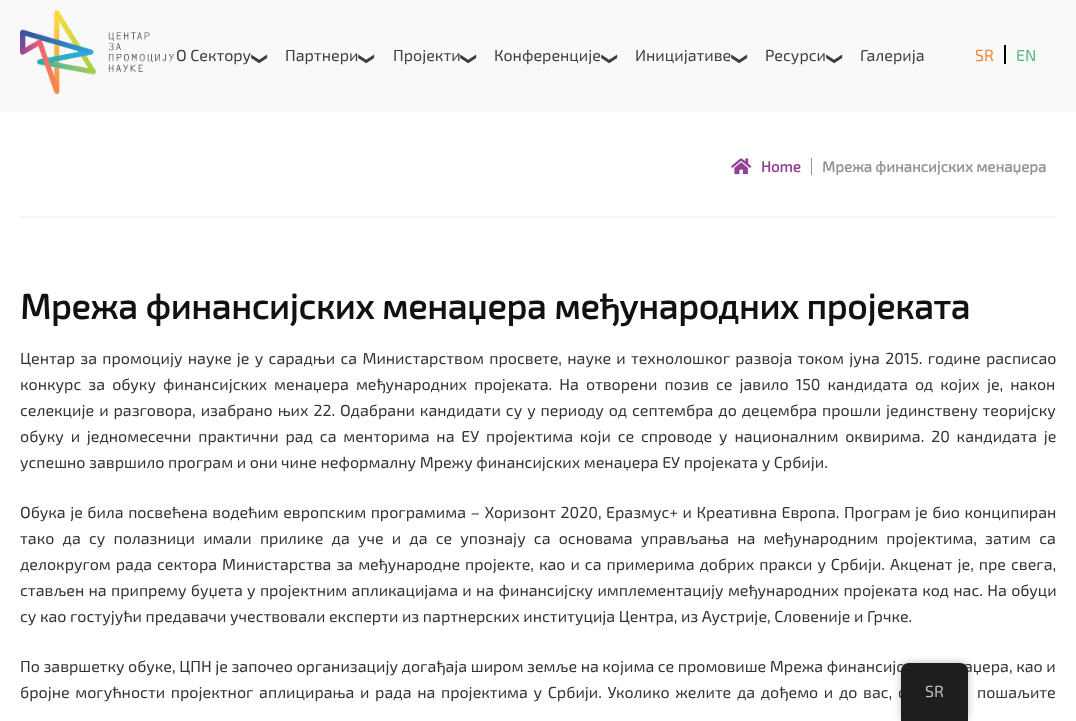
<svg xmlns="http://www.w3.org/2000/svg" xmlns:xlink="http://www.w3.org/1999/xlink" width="1076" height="721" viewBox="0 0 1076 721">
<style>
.cls-1{font:16px 'Exo 2';fill:#3d3d3d}
.cls-2{font:16px DejaVu Sans;fill:#3d3d3d}
.cls-3{font:16px 'Exo 2';fill:#f48436}
.cls-4{font:16px 'Exo 2';fill:#54b77e}
.cls-5{font:bold 15px 'Exo 2';fill:#8f3f94}
.cls-6{font:bold 15px 'Exo 2';fill:#959595}
.cls-7{font:bold 35.2px 'Exo 2';fill:#111111}
.cls-8{font:16px 'Exo 2';fill:#333333}
.cls-9{font:16px 'Exo 2';fill:#bdbdbd}
</style>
<rect width="100%" height="100%" fill="#ffffff"/>
<rect fill="#f9f9f9" x="0" y="0" width="1076" height="111"/>
<image xlink:href="image0.png" x="20" y="10" width="154" height="84"/>
<rect fill="#000000" x="1004" y="45" width="2" height="19"/>
<rect fill="#f6f6f6" x="20" y="216" width="1036" height="2"/>
<image xlink:href="image1.png" x="731" y="158" width="21" height="17"/>
<rect fill="#959595" x="811" y="158" width="1" height="17"/>
<rect fill="#000000" fill-opacity="0.25" filter="blur(4px)" x="901" y="663" width="67" height="58" rx="8"/>
<text class="cls-1" x="176" y="61">О Сектору</text>
<text class="cls-2" x="255" y="52" transform="rotate(90 255 52)">❯</text>
<text class="cls-1" x="285" y="61">Партнери</text>
<text class="cls-2" x="362" y="52" transform="rotate(90 362 52)">❯</text>
<text class="cls-1" x="393" y="61">Пројекти</text>
<text class="cls-2" x="464" y="52" transform="rotate(90 464 52)">❯</text>
<text class="cls-1" x="494" y="61">Конференције</text>
<text class="cls-2" x="605" y="52" transform="rotate(90 605 52)">❯</text>
<text class="cls-1" x="635" y="61">Иницијативе</text>
<text class="cls-2" x="735" y="52" transform="rotate(90 735 52)">❯</text>
<text class="cls-1" x="765" y="61">Ресурси</text>
<text class="cls-2" x="830" y="52" transform="rotate(90 830 52)">❯</text>
<text class="cls-1" x="860" y="61">Галерија</text>
<text class="cls-3" x="975" y="61">SR</text>
<text class="cls-4" x="1016" y="61">EN</text>
<text class="cls-5" x="761" y="172">Home</text>
<text class="cls-6" x="822" y="172">Мрежа финансијских менаџера</text>
<text class="cls-7" x="20" y="319">Мрежа финансијских менаџера међународних пројеката</text>
<text class="cls-8"><tspan x="20" y="364" word-spacing="1.7">Центар за промоцију науке је у сарадњи са Министарством просвете, науке и технолошког развоја током јуна 2015. године расписао</tspan><tspan x="20" y="390" word-spacing="3.5">конкурс за обуку финансијских менаџера међународних пројеката. На отворени позив се јавило 150 кандидата од којих је, након</tspan><tspan x="20" y="416" word-spacing="1.4">селекције и разговора, изабрано њих 22. Одабрани кандидати су у периоду од септембра до децембра прошли јединствену теоријску</tspan><tspan x="20" y="442" word-spacing="3.25">обуку и једномесечни практични рад са менторима на ЕУ пројектима који се спроводе у националним оквирима. 20 кандидата је</tspan><tspan x="20" y="468">успешно завршило програм и они чине неформалну Мрежу финансијских менаџера ЕУ пројеката у Србији.</tspan></text>
<text class="cls-8"><tspan x="20" y="518" word-spacing="0.9">Обука је била посвећена водећим европским програмима – Хоризонт 2020, Еразмус+ и Креативна Европа. Програм је био конципиран</tspan><tspan x="20" y="544" word-spacing="4.6">тако да су полазници имали прилике да уче и да се упознају са основама управљања на међународним пројектима, затим са</tspan><tspan x="20" y="570" word-spacing="1.4">делокругом рада сектора Министарства за међународне пројекте, као и са примерима добрих пракси у Србији. Акценат је, пре свега,</tspan><tspan x="20" y="596" word-spacing="0.75">стављен на припрему буџета у пројектним апликацијама и на финансијску имплементацију међународних пројеката код нас. На обуци</tspan><tspan x="20" y="622">су као гостујући предавачи учествовали експерти из партнерских институција Центра, из Аустрије, Словеније и Грчке.</tspan></text>
<text class="cls-8" x="20" y="672">По завршетку обуке, ЦПН је започео организацију догађаја широм земље на којима се промовише Мрежа финансијс</text>
<text class="cls-8" x="964" y="672">аџера, као и</text>
<text class="cls-8" x="20" y="698" word-spacing="2.1">бројне могућности пројектног аплицирања и рада на пројектима у Србији. Уколико желите да дођемо и до вас, с</text>
<text class="cls-8" x="977" y="698" word-spacing="2.1">пошаљите</text>
<path fill="#1e1e1e" d="M909 663H960C964.5 663 968 666.5 968 671V721H901V671C901 666.5 904.5 663 909 663Z"/>
<text class="cls-9" x="925" y="697">SR</text>
</svg>
